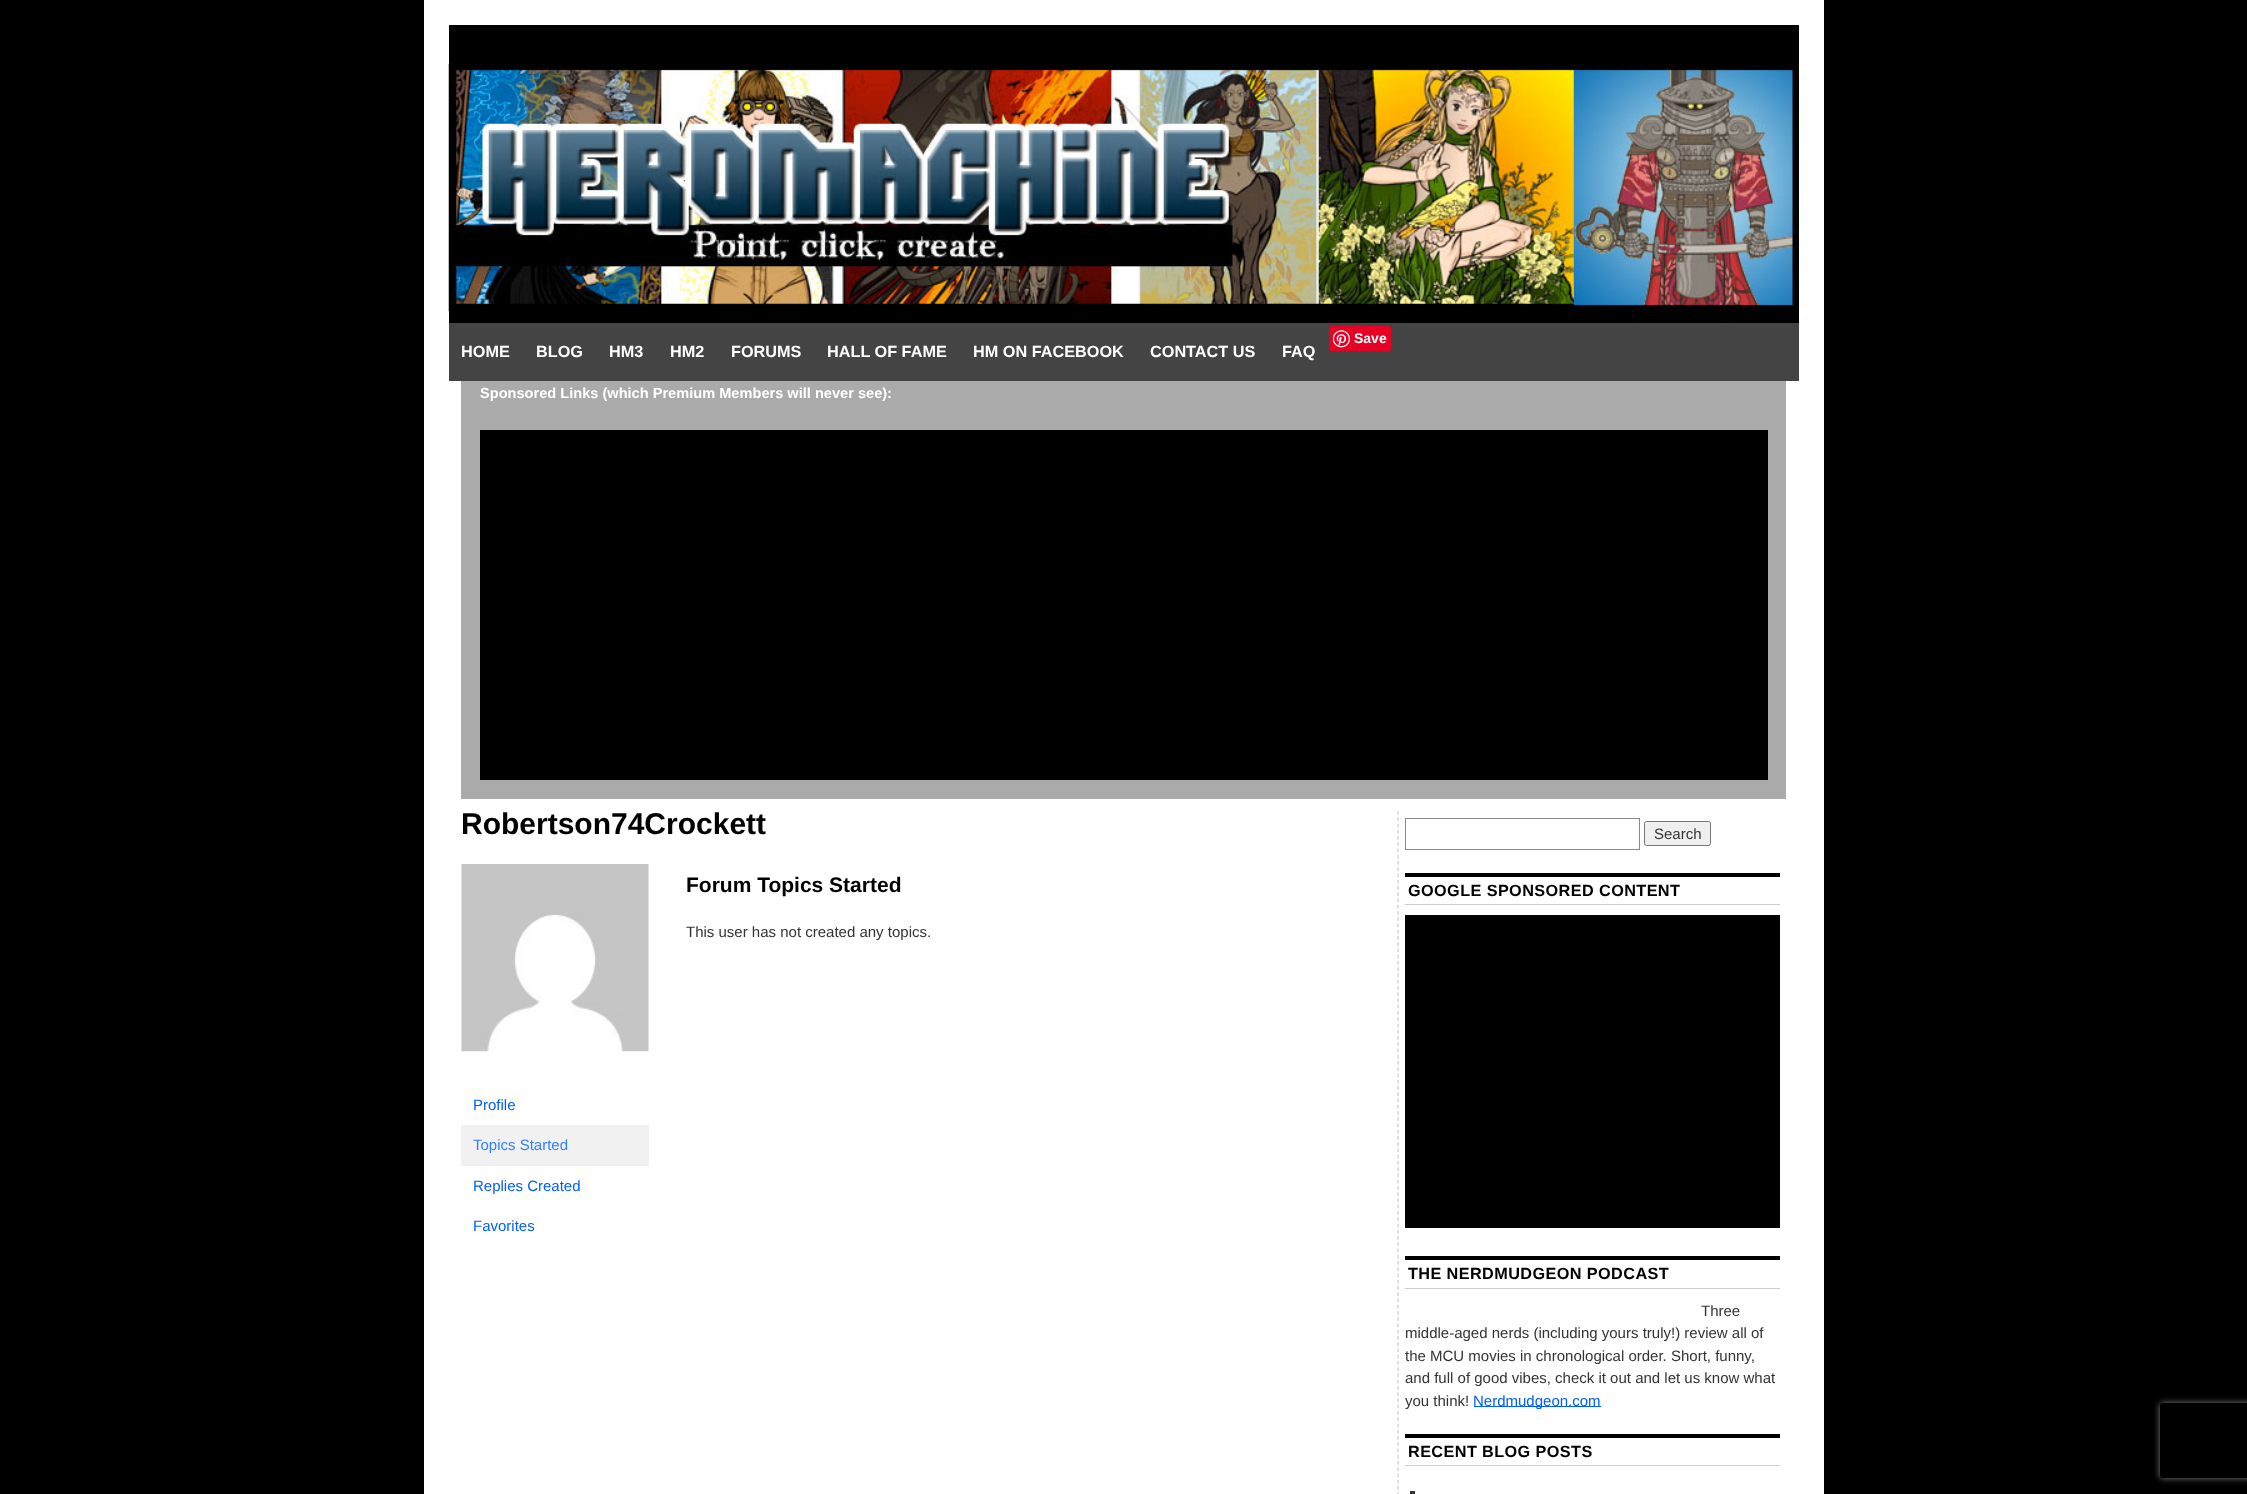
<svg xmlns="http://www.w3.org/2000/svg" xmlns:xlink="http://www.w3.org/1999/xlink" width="2247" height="1494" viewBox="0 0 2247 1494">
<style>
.cls-1{font:bold 14px Liberation Sans;fill:#ffffff}
.cls-2{font:bold 16.25px Liberation Sans;fill:#ffffff}
.cls-3{font:bold 14.6px Liberation Sans;fill:#ffffff}
.cls-4{font:bold 30px Liberation Sans;fill:#000000}
.cls-5{font:bold 21px Liberation Sans;fill:#000000}
.cls-6{font:15px Liberation Sans;fill:#333333}
.cls-7{font:15px Liberation Sans;fill:#0060ff}
.cls-8{font:15px Liberation Sans;fill:#3380ff}
.cls-9{font:bold 16.25px Liberation Sans;letter-spacing:0.4px;fill:#000000}
</style>
<defs>
<clipPath id="clip1"><path d="M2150 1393H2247V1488H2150ZM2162.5 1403H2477.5C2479 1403 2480 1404 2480 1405.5V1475.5C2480 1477 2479 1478 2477.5 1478H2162.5C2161 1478 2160 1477 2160 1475.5V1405.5C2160 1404 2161 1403 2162.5 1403Z" clip-rule="evenodd"/></clipPath>
</defs>
<rect width="100%" height="100%" fill="#000000"/>
<rect fill="#ffffff" x="424" y="0" width="1400" height="1494"/>
<rect fill="#000000" x="449" y="25" width="1350" height="298"/>
<image xlink:href="image0.png" x="448" y="63" width="1351" height="249"/>
<rect fill="#444444" x="449" y="323" width="1350" height="58"/>
<rect fill="#e60023" x="1329" y="326" width="62" height="25" rx="2.5"/>
<image xlink:href="image1.png" x="1333" y="330" width="17" height="18"/>
<rect fill="#aaaaaa" x="461" y="381" width="1325" height="418"/>
<rect fill="#000000" x="480" y="430" width="1288" height="350"/>
<image xlink:href="image2.png" x="461" y="864" width="188" height="188"/>
<rect fill="#f1f1f1" x="461" y="1125" width="188" height="41"/>
<path fill="none" stroke="#cccccc" stroke-width="1.2" stroke-dasharray="3.75 2.5" d="M1398 811V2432.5"/>
<rect fill="none" stroke="#888888" x="1405.5" y="818.5" width="234" height="31"/>
<rect fill="#efefef" stroke="#767676" x="1644.5" y="821.5" width="66" height="24" rx="2"/>
<rect fill="#000000" x="1405" y="873" width="375" height="4"/>
<rect fill="#cccccc" x="1405" y="904" width="375" height="1"/>
<rect fill="#000000" x="1405" y="915" width="375" height="313"/>
<rect fill="#000000" x="1405" y="1256" width="375" height="4"/>
<rect fill="#cccccc" x="1405" y="1288" width="375" height="1"/>
<rect fill="#0060ff" x="1474" y="1406" width="127" height="1"/>
<rect fill="#000000" x="1405" y="1434" width="375" height="4"/>
<rect fill="#cccccc" x="1405" y="1465" width="375" height="1"/>
<rect fill="#333333" x="1410" y="1491" width="5" height="3"/>
<g clip-path="url(#clip1)">
<rect fill="#808080" filter="blur(3px)" x="2160" y="1403" width="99" height="75" rx="2.5"/>
</g>
<text class="cls-1" x="1354" y="343">Save</text>
<text class="cls-2" x="461" y="357">HOME</text>
<text class="cls-2" x="536" y="357">BLOG</text>
<text class="cls-2" x="609" y="357">HM3</text>
<text class="cls-2" x="670" y="357">HM2</text>
<text class="cls-2" x="731" y="357">FORUMS</text>
<text class="cls-2" x="827" y="357">HALL OF FAME</text>
<text class="cls-2" x="973" y="357">HM ON FACEBOOK</text>
<text class="cls-2" x="1150" y="357">CONTACT US</text>
<text class="cls-2" x="1282" y="357">FAQ</text>
<text class="cls-3" x="480" y="398">Sponsored Links (which Premium Members will never see):</text>
<text class="cls-4" x="461" y="834">Robertson74Crockett</text>
<text class="cls-5" x="686" y="892">Forum Topics Started</text>
<text class="cls-6" x="686" y="937">This user has not created any topics.</text>
<text class="cls-7" x="473" y="1110">Profile</text>
<text class="cls-8" x="473" y="1150">Topics Started</text>
<text class="cls-7" x="473" y="1191">Replies Created</text>
<text class="cls-7" x="473" y="1231">Favorites</text>
<text class="cls-6" x="1654" y="839">Search</text>
<text class="cls-9" x="1408" y="896">GOOGLE SPONSORED CONTENT</text>
<text class="cls-9" x="1408" y="1279">THE NERDMUDGEON PODCAST</text>
<text class="cls-6" x="1701" y="1316">Three</text>
<text class="cls-6"><tspan x="1405" y="1338">middle-aged nerds (including yours truly!) review all of</tspan><tspan x="1405" y="1361">the MCU movies in chronological order. Short, funny,</tspan><tspan x="1405" y="1383">and full of good vibes, check it out and let us know what</tspan><tspan x="1405" y="1406">you think!</tspan></text>
<text class="cls-7" x="1473" y="1406">Nerdmudgeon.com</text>
<text class="cls-9" x="1408" y="1457">RECENT BLOG POSTS</text>
</svg>
